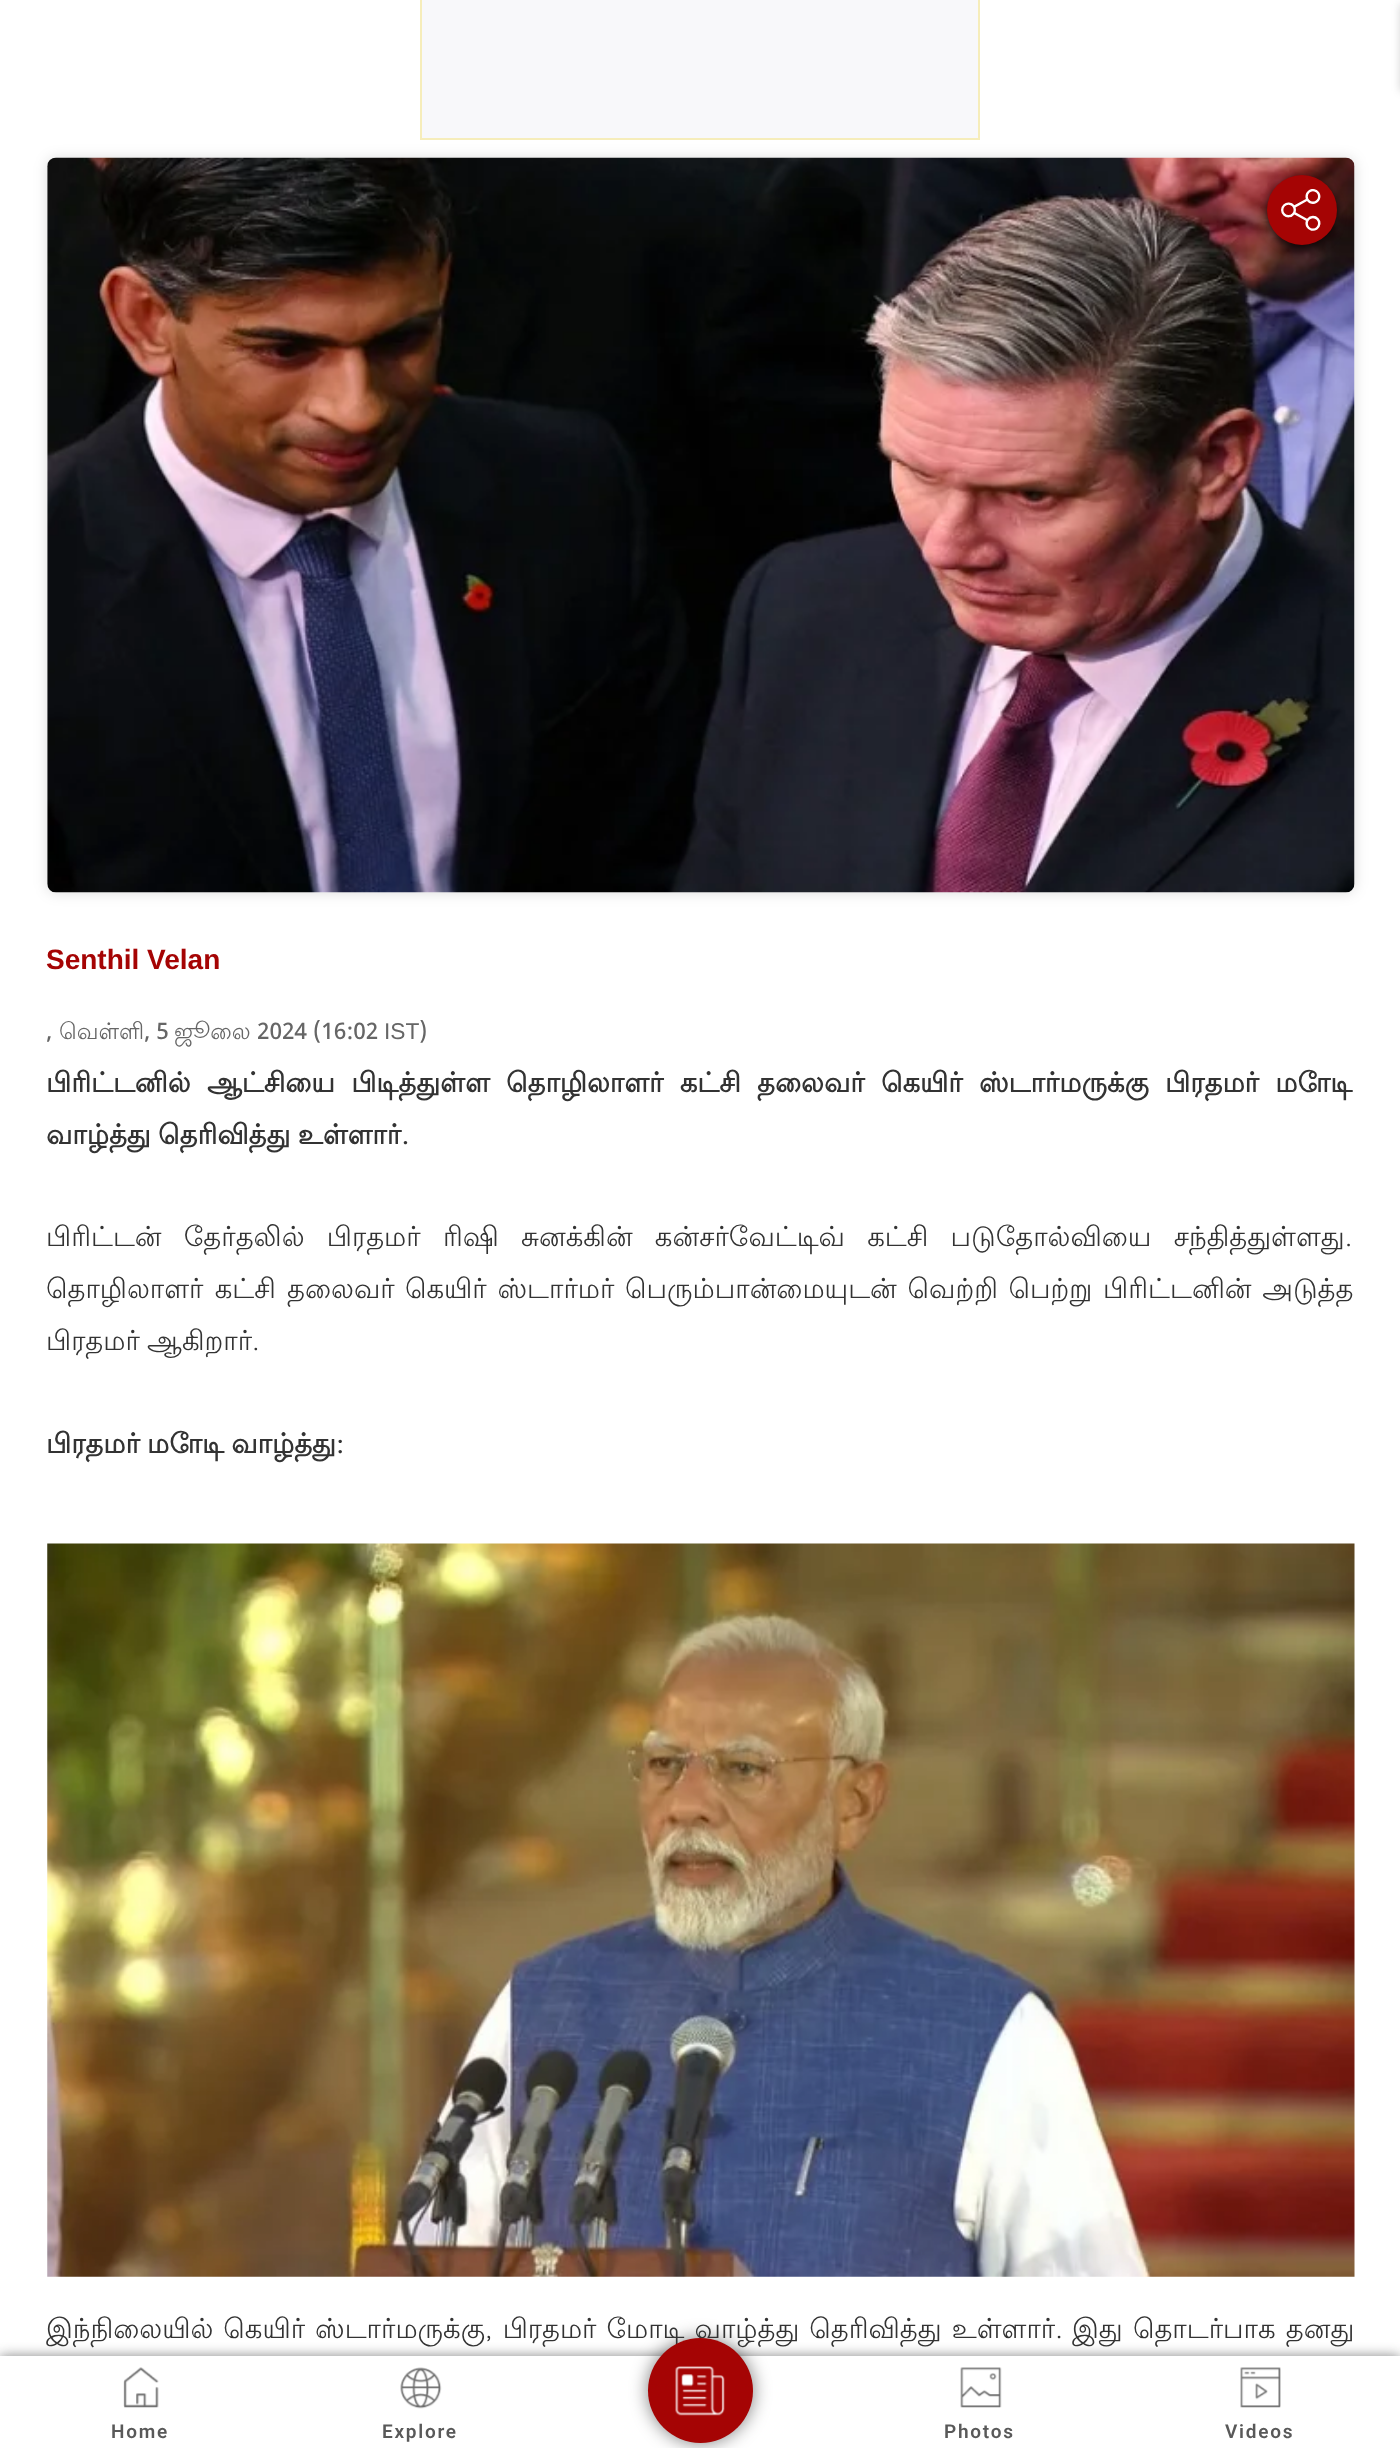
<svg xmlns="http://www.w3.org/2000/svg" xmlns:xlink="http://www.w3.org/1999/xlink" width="1400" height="2448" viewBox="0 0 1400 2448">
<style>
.cls-1{font:bold 28px Liberation Sans;fill:#a50404}
.cls-2{font:500 22.75px Noto Sans Devanagari UI;fill:#666666}
.cls-3{font:22.75px Lohit Tamil;fill:#666666}
.cls-4{font:22.75px Liberation Sans;fill:#666666}
.cls-5{font:bold 27.55px Lohit Tamil;fill:#333333}
.cls-6{font:27.55px Lohit Tamil;fill:#333333}
.cls-7{font:600 19px Roboto;letter-spacing:1.75px;fill:#595959}
</style>
<rect width="100%" height="100%" fill="#ffffff"/>
<rect fill="#000000" fill-opacity="0.16" filter="blur(4.5px)" x="1400" y="4" width="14" height="87"/>
<rect fill="#f8f8fa" stroke="#f6edba" stroke-width="2" x="421" y="-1" width="558" height="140"/>
<rect fill="#000000" fill-opacity="0.13" filter="blur(7px)" x="47" y="158" width="1308" height="735" rx="9"/>
<image xlink:href="image0.png" x="47" y="157" width="1308" height="736"/>
<rect fill="#000000" fill-opacity="0.8" filter="blur(4.5px)" x="1267" y="179" width="70" height="70" rx="35"/>
<circle fill="#a50404" cx="1302" cy="210" r="35"/>
<image xlink:href="image1.png" x="1281" y="189" width="40" height="42"/>
<image xlink:href="image2.png" x="47" y="1543" width="1308" height="734"/>
<rect fill="#000000" fill-opacity="0.3" filter="blur(6px)" x="0" y="2356" width="1400" height="92"/>
<rect fill="#000000" fill-opacity="0.2" filter="blur(7px)" x="0" y="2356" width="1400" height="92"/>
<rect fill="#ffffff" x="0" y="2356" width="1400" height="92"/>
<image xlink:href="image3.png" x="123" y="2367" width="36" height="41"/>
<image xlink:href="image4.png" x="400" y="2367" width="42" height="42"/>
<rect fill="#000000" fill-opacity="0.5" filter="blur(9px)" x="648" y="2338" width="105" height="105" rx="52.5"/>
<image xlink:href="image6.png" x="960" y="2367" width="42" height="41"/>
<image xlink:href="image7.png" x="1240" y="2367" width="41" height="41"/>
<text class="cls-1" x="46" y="969">Senthil Velan</text>
<text class="cls-2" x="46" y="1039">,</text>
<text class="cls-3" x="59" y="1039">வெள்ளி</text>
<text class="cls-2" x="144" y="1039">, 5</text>
<text class="cls-3" x="174" y="1039">ஜூலை</text>
<text class="cls-2" x="257" y="1039">2024 (16:02</text>
<text class="cls-4" x="384" y="1039">IST</text>
<text class="cls-2" x="419" y="1039">)</text>
<text class="cls-5"><tspan x="46" y="1092" word-spacing="8">பிரிட்டனில் ஆட்சியை பிடித்துள்ள தொழிலாளர் கட்சி தலைவர் கெயிர் ஸ்டார்மருக்கு பிரதமர் மோடி</tspan><tspan x="46" y="1144" word-spacing="-1">வாழ்த்து தெரிவித்து உள்ளார்.</tspan></text>
<text class="cls-6"><tspan x="46" y="1246" word-spacing="14">பிரிட்டன் தேர்தலில் பிரதமர் ரிஷி சுனக்கின் கன்சர்வேட்டிவ் கட்சி படுதோல்வியை சந்தித்துள்ளது.</tspan><tspan x="46" y="1298" word-spacing="3">தொழிலாளர் கட்சி தலைவர்</tspan></text>
<text class="cls-6" x="405" y="1298" word-spacing="2.5">கெயிர் ஸ்டார்மர் பெரும்பான்மையுடன் வெற்றி பெற்று பிரிட்டனின் அடுத்த</text>
<text class="cls-6" x="46" y="1350" word-spacing="-1">பிரதமர் ஆகிறார்.</text>
<text class="cls-5" x="46" y="1453" word-spacing="-1">பிரதமர் மோடி வாழ்த்து:</text>
<text class="cls-6" x="46" y="2338" word-spacing="1.75">இந்நிலையில் கெயிர் ஸ்டார்மருக்கு, பிரதமர் மோடி வாழ்த்து தெரிவித்து உள்ளார்.</text>
<text class="cls-6" x="1072" y="2338" word-spacing="2">இது தொடர்பாக தனது</text>
<text class="cls-7" x="111" y="2438">Home</text>
<text class="cls-7" x="382" y="2438">Explore</text>
<circle fill="#a50404" cx="700.5" cy="2390.5" r="52.5"/>
<image xlink:href="image5.png" x="675" y="2366" width="50" height="50"/>
<text class="cls-7" x="944" y="2438">Photos</text>
<text class="cls-7" x="1225" y="2438">Videos</text>
</svg>
